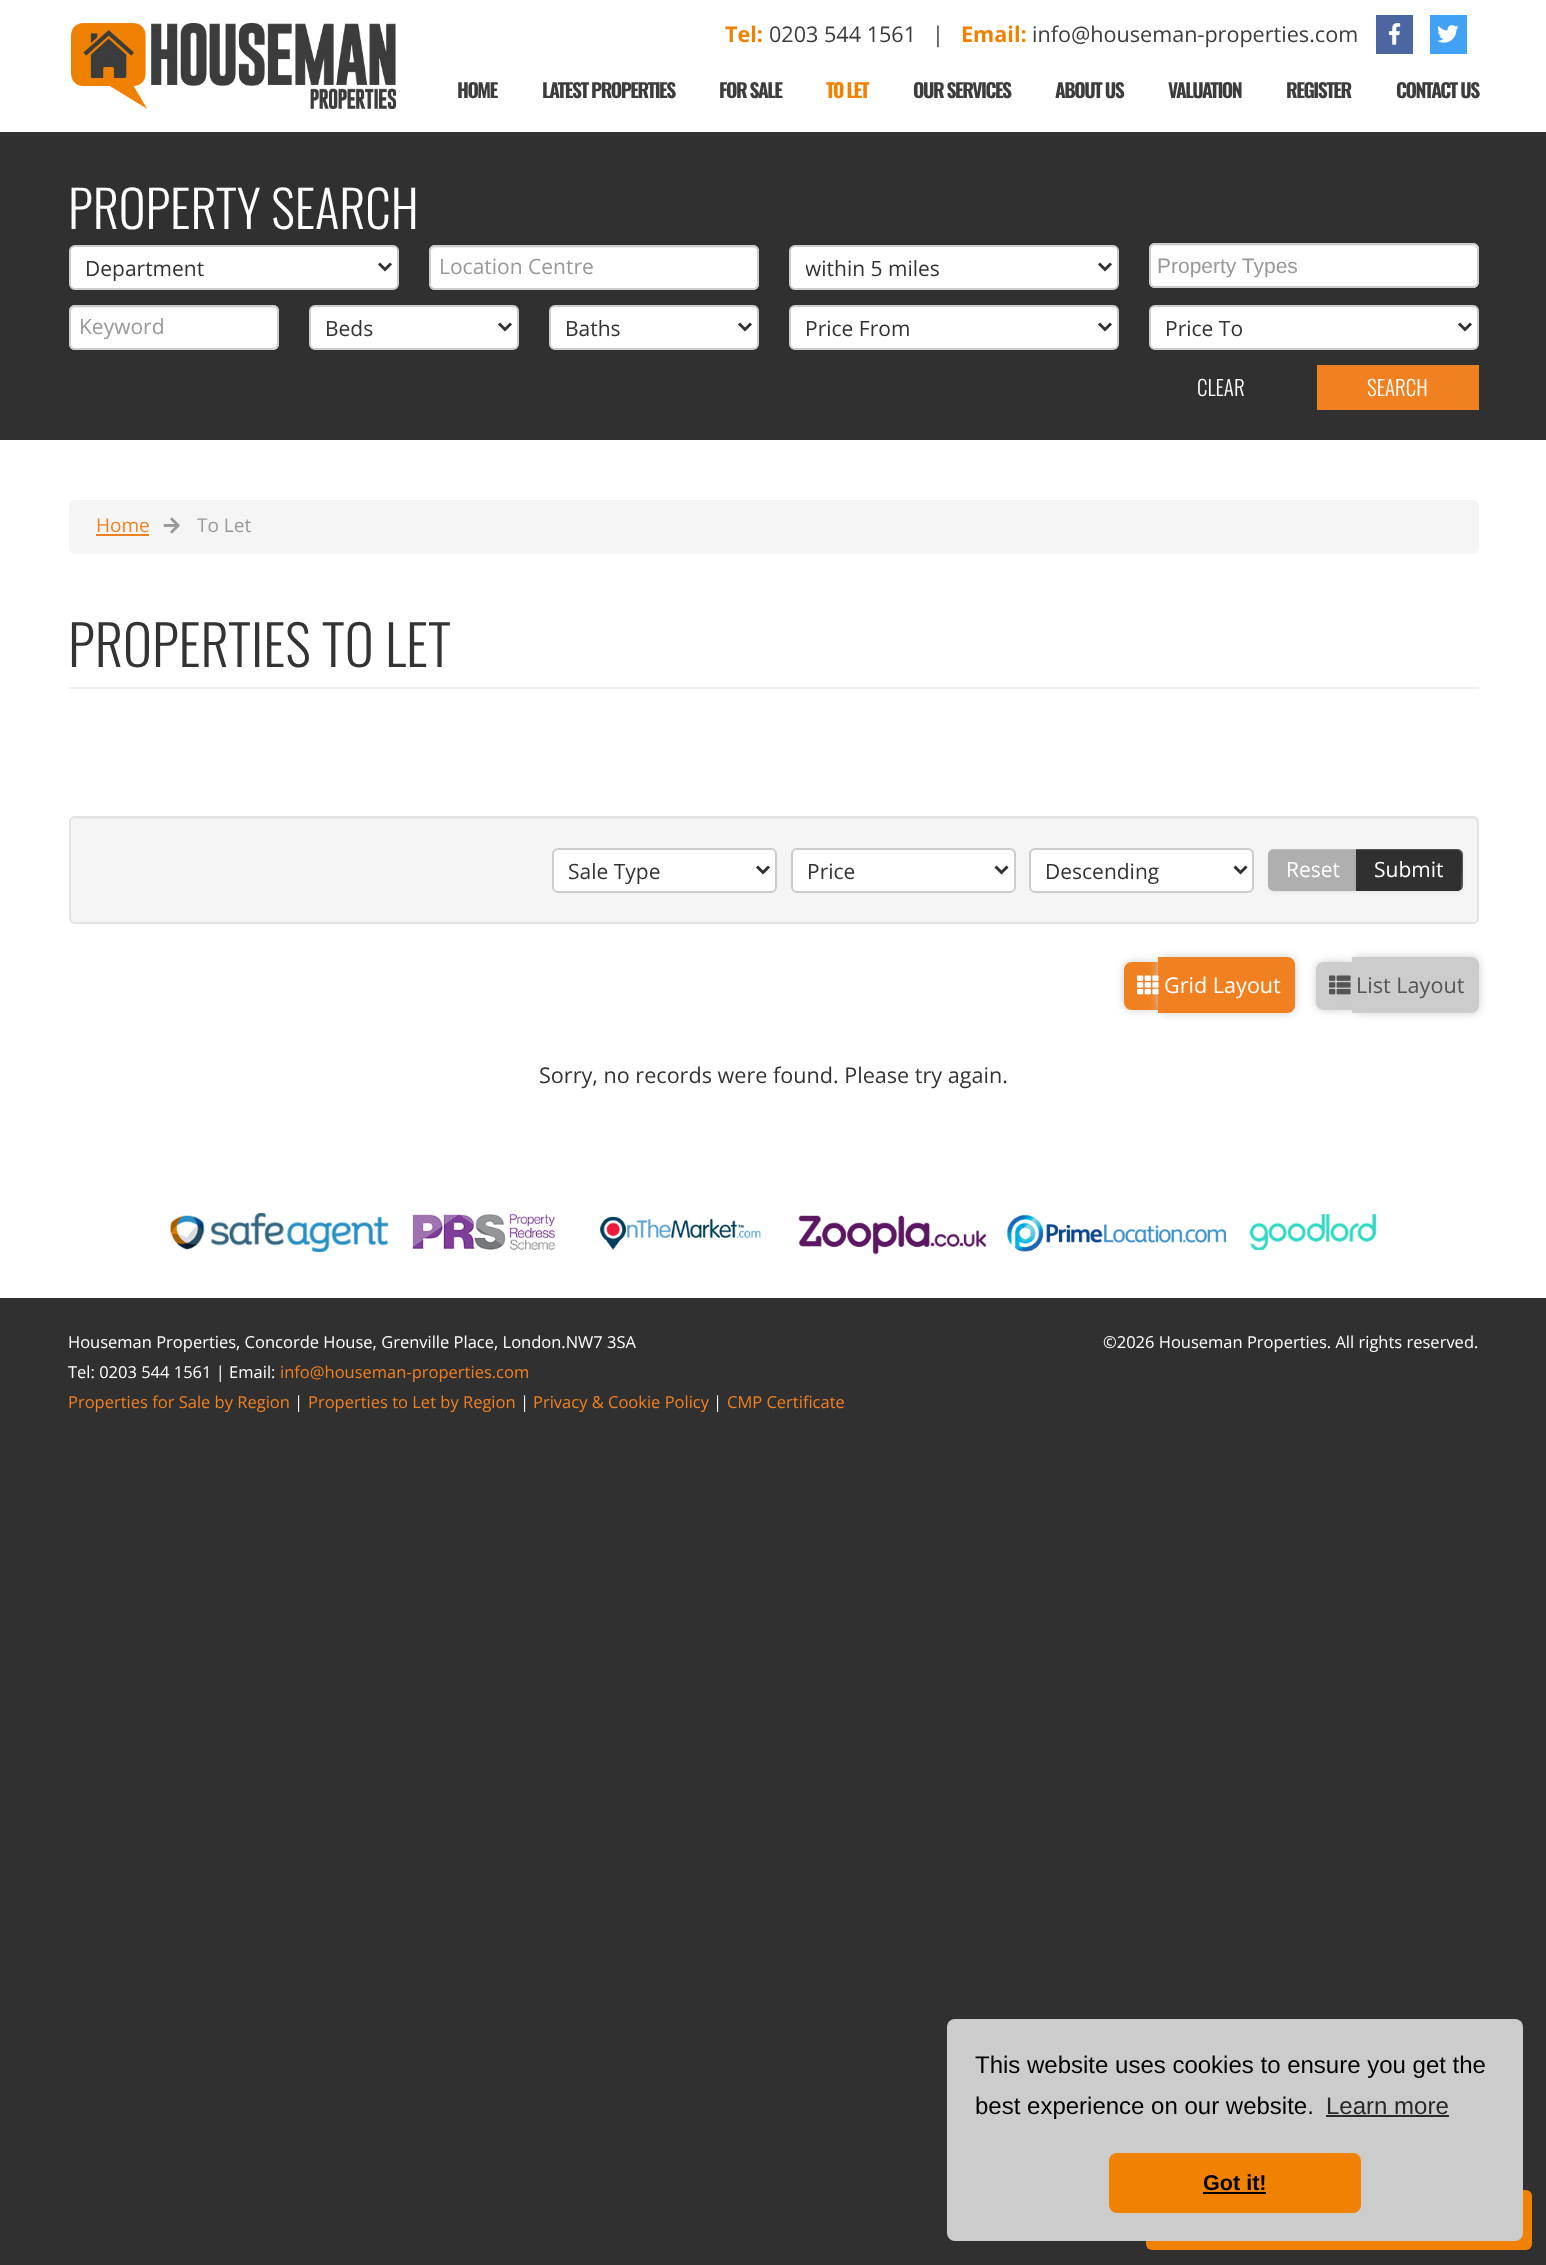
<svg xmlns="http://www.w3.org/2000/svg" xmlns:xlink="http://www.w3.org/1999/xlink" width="1546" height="2265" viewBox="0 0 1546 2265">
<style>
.cls-1{font:bold 21.6px Open Sans;fill:#f18101}
.cls-2{font:21.6px Open Sans;fill:#3c3c3c}
.cls-3{font:bold 19.5px Oswald;letter-spacing:-1.5px;fill:#3c3c3c}
.cls-4{font:bold 19.5px Oswald;letter-spacing:-1.5px;fill:#f18101}
.cls-5{font:300 51px Oswald;fill:#ffffff}
.cls-6{font:21px Open Sans;fill:#333333}
.cls-7{font:21px Open Sans;fill:#999999}
.cls-8{font:21px Liberation Sans;fill:#999999}
.cls-9{font:300 21px Oswald;fill:#ffffff}
.cls-10{font:19px Open Sans;fill:#f18120}
.cls-11{font:19px Open Sans;fill:#999999}
.cls-12{font:300 55.25px Oswald;fill:#333333}
.cls-13{font:21px Open Sans;fill:#ffffff}
.cls-14{font:21.6px Open Sans;fill:#ffffff}
.cls-15{font:21.6px Open Sans;fill:#555555}
.cls-16{font:21.6px Open Sans;fill:#333333}
.cls-17{font:16.5px Open Sans;fill:#ffffff}
.cls-18{font:16.5px Open Sans;fill:#f18120}
.cls-19{font:24px Liberation Sans;fill:#000000}
.cls-20{font:24px Liberation Sans;fill:#292929}
.cls-21{font:bold 21.6px Liberation Sans;fill:#000000}
</style>
<defs>
<clipPath id="clip1"><rect x="806" y="252" width="279" height="32"/></clipPath>
</defs>
<rect width="100%" height="100%" fill="#303030"/>
<rect fill="#ffffff" x="0" y="0" width="1546" height="132"/>
<image xlink:href="image0.png" x="71" y="23" width="326" height="86"/>
<rect fill="#4b66a0" x="1376" y="15" width="37" height="39"/>
<image xlink:href="image1.png" x="1389" y="23" width="12" height="22"/>
<rect fill="#40a1f5" x="1430" y="15" width="37" height="39"/>
<image xlink:href="image2.png" x="1437" y="25" width="22" height="18"/>
<rect fill="#ffffff" stroke="#cccccc" stroke-width="2" x="70" y="246" width="328" height="43" rx="5"/>
<path fill="none" stroke="#333333" stroke-width="3" d="M379 263.5L385 269.5L391 263.5"/>
<rect fill="#ffffff" x="429" y="245" width="330" height="45" rx="6"/>
<path fill="#ececec" d="M435 248H753C755 248 758 250 758 252V251C758 248 756 246 753 246H436C434 246 432 248 431 250C432 249 434 248 435 248Z"/>
<rect fill="none" stroke="#cccccc" stroke-width="2" x="430" y="246" width="328" height="43" rx="5"/>
<rect fill="#ffffff" stroke="#cccccc" stroke-width="2" x="790" y="246" width="328" height="43" rx="5"/>
<path fill="none" stroke="#333333" stroke-width="3" d="M1099 263.5L1105 269.5L1111 263.5"/>
<rect fill="#ffffff" x="1149" y="243" width="330" height="45" rx="6"/>
<path fill="#ececec" d="M1155 246H1473C1475 246 1478 248 1478 250C1478 247 1476 245 1473 245H1156C1154 245 1153 246 1152 247Z"/>
<rect fill="none" stroke="#cccccc" stroke-width="2" x="1150" y="244" width="328" height="43" rx="5"/>
<rect fill="#ffffff" x="69" y="305" width="210" height="45" rx="6"/>
<path fill="#ececec" d="M75 308H273C275 308 278 310 278 312V311C278 308 276 306 273 306H76C74 306 72 308 71 310C72 309 74 308 75 308Z"/>
<rect fill="none" stroke="#cccccc" stroke-width="2" x="70" y="306" width="208" height="43" rx="5"/>
<rect fill="#ffffff" stroke="#cccccc" stroke-width="2" x="310" y="306" width="208" height="43" rx="5"/>
<path fill="none" stroke="#333333" stroke-width="3" d="M499 323.5L505 329.5L511 323.5"/>
<rect fill="#ffffff" stroke="#cccccc" stroke-width="2" x="550" y="306" width="208" height="43" rx="5"/>
<path fill="none" stroke="#333333" stroke-width="3" d="M739 323.5L745 329.5L751 323.5"/>
<rect fill="#ffffff" stroke="#cccccc" stroke-width="2" x="790" y="306" width="328" height="43" rx="5"/>
<path fill="none" stroke="#333333" stroke-width="3" d="M1099 323.5L1105 329.5L1111 323.5"/>
<rect fill="#ffffff" stroke="#cccccc" stroke-width="2" x="1150" y="306" width="328" height="43" rx="5"/>
<path fill="none" stroke="#333333" stroke-width="3" d="M1459 323.5L1465 329.5L1471 323.5"/>
<rect fill="#f18120" x="1317" y="365" width="162" height="45"/>
<rect fill="#ffffff" x="0" y="440" width="1546" height="858"/>
<rect fill="#f5f5f5" x="69" y="500" width="1410" height="54" rx="6"/>
<rect fill="#f18120" x="96" y="534" width="53" height="2"/>
<image xlink:href="image3.png" x="163" y="517" width="17" height="17"/>
<rect fill="#eeeeee" x="69" y="687" width="1410" height="2"/>
<rect fill="#f5f5f5" x="69" y="816" width="1410" height="108" rx="6"/>
<path fill="#e9e9e9" d="M75 819H1473C1475 819 1478 821 1478 824V823C1478 820 1476 818 1473 818H76C74 818 73 819 72 820Z"/>
<rect fill="none" stroke="#e3e3e3" stroke-width="2" x="70" y="817" width="1408" height="106" rx="5"/>
<rect fill="#ffffff" stroke="#cccccc" stroke-width="2" x="553" y="849" width="223" height="43" rx="5"/>
<path fill="none" stroke="#303030" stroke-width="3" d="M757 866.5L763 872.5L769 866.5"/>
<rect fill="#ffffff" stroke="#cccccc" stroke-width="2" x="792" y="849" width="223" height="43" rx="5"/>
<path fill="none" stroke="#303030" stroke-width="3" d="M995.5 866.5L1001.5 872.5L1007.5 866.5"/>
<rect fill="#ffffff" stroke="#cccccc" stroke-width="2" x="1030" y="849" width="223" height="43" rx="5"/>
<path fill="none" stroke="#303030" stroke-width="3" d="M1234.5 866.5L1240.5 872.5L1246.5 866.5"/>
<rect fill="#000000" fill-opacity="0.05" filter="blur(1.5px)" x="1268" y="851" width="90" height="42" rx="6"/>
<path fill="#afafaf" d="M1274 849H1358V891H1274C1270.5 891 1268 888.5 1268 885V855C1268 851.5 1270.5 849 1274 849Z"/>
<path fill="#ffffff" fill-opacity="0.2" d="M1274 850H1358V849H1274C1271 849 1268 852 1268 855V856C1268 853 1270 850 1274 850Z"/>
<rect fill="#000000" fill-opacity="0.05" filter="blur(1.5px)" x="1356" y="851" width="107" height="42" rx="6"/>
<path fill="#303030" d="M1356 849H1457C1460.5 849 1463 851.5 1463 855V885C1463 888.5 1460.5 891 1457 891H1356Z"/>
<path fill="#ffffff" fill-opacity="0.2" d="M1356 850H1456C1464 850 1462 861 1462 866L1461 889C1462 888 1463 887 1463 885V855C1463 852 1460 849 1457 849H1356Z"/>
<rect fill="#cccccc" filter="blur(4px)" x="1124" y="962" width="34" height="48" rx="8"/>
<path fill="#f18120" d="M1132 962H1158V1010H1132C1127.5 1010 1124 1006.5 1124 1002V970C1124 965.5 1127.5 962 1132 962Z"/>
<rect fill="#cccccc" filter="blur(4px)" x="1158" y="957" width="137" height="56" rx="8"/>
<path fill="#f18120" d="M1158 957H1287C1291.5 957 1295 960.5 1295 965V1005C1295 1009.5 1291.5 1013 1287 1013H1158Z"/>
<image xlink:href="image4.png" x="1137" y="975" width="22" height="20"/>
<rect fill="#cccccc" filter="blur(4px)" x="1316" y="962" width="36" height="48" rx="8"/>
<path fill="#cccccc" d="M1324 962H1352V1010H1324C1319.5 1010 1316 1006.5 1316 1002V970C1316 965.5 1319.5 962 1324 962Z"/>
<rect fill="#cccccc" filter="blur(4px)" x="1352" y="957" width="127" height="56" rx="8"/>
<path fill="#cccccc" d="M1352 957H1471C1475.5 957 1479 960.5 1479 965V1005C1479 1009.5 1475.5 1013 1471 1013H1352Z"/>
<image xlink:href="image5.png" x="1329" y="975" width="22" height="20"/>
<image xlink:href="image6.png" x="170" y="1213" width="1206" height="42"/>
<rect fill="#f18101" x="1146" y="2190" width="386" height="60" rx="6"/>
<rect fill="#cccccc" x="947" y="2019" width="576" height="222" rx="8"/>
<rect fill="#292929" x="1326" y="2115" width="123" height="2"/>
<rect fill="#f18101" x="1109" y="2153" width="252" height="60" rx="8"/>
<rect fill="#000000" x="1203" y="2192" width="63" height="2"/>
<text class="cls-1" x="725" y="42">Tel:</text>
<text class="cls-2" x="769" y="42">0203 544 1561</text>
<text class="cls-2" x="932" y="42">|</text>
<text class="cls-1" x="961" y="42">Email:</text>
<text class="cls-2" x="1032" y="42">info@houseman-properties.com</text>
<text class="cls-3" x="457" y="98">HOME</text>
<text class="cls-3" x="542" y="98">LATEST PROPERTIES</text>
<text class="cls-3" x="719" y="98">FOR SALE</text>
<text class="cls-4" x="826" y="98">TO LET</text>
<text class="cls-3" x="913" y="98">OUR SERVICES</text>
<text class="cls-3" x="1055" y="98">ABOUT US</text>
<text class="cls-3" x="1168" y="98">VALUATION</text>
<text class="cls-3" x="1286" y="98">REGISTER</text>
<text class="cls-3" x="1396" y="98">CONTACT US</text>
<text class="cls-5" x="68" y="229">PROPERTY SEARCH</text>
<text class="cls-6" x="85" y="276">Department</text>
<text class="cls-7" x="439" y="274">Location Centre</text>
<g clip-path="url(#clip1)">
<text class="cls-6" x="805" y="276">within 5 miles</text>
</g>
<text class="cls-8" x="1157" y="273">Property Types</text>
<text class="cls-7" x="79" y="334">Keyword</text>
<text class="cls-6" x="325" y="336">Beds</text>
<text class="cls-6" x="565" y="336">Baths</text>
<text class="cls-6" x="805" y="336">Price From</text>
<text class="cls-6" x="1165" y="336">Price To</text>
<text class="cls-9" x="1197" y="396">CLEAR</text>
<text class="cls-9" x="1367" y="396">SEARCH</text>
<text class="cls-10" x="96" y="532">Home</text>
<text class="cls-11" x="197" y="532">To Let</text>
<text class="cls-12" x="68" y="667">PROPERTIES TO LET</text>
<text class="cls-6" x="568" y="879">Sale Type</text>
<text class="cls-6" x="807" y="879">Price</text>
<text class="cls-6" x="1045" y="879">Descending</text>
<text class="cls-13" x="1286" y="877">Reset</text>
<text class="cls-13" x="1374" y="877">Submit</text>
<text class="cls-14" x="1164" y="993">Grid Layout</text>
<text class="cls-15" x="1356" y="993">List Layout</text>
<text class="cls-16" x="539" y="1083">Sorry, no records were found. Please try again.</text>
<text class="cls-17"><tspan x="68" y="1348">Houseman Properties, Concorde House, Grenville Place, London.NW7 3SA</tspan><tspan x="68" y="1378">Tel: 0203 544 1561 | Email:</tspan></text>
<text class="cls-18" x="280" y="1378">info@houseman-properties.com</text>
<text class="cls-18" x="68" y="1408">Properties for Sale by Region</text>
<text class="cls-17" x="294" y="1408">|</text>
<text class="cls-18" x="308" y="1408">Properties to Let by Region</text>
<text class="cls-17" x="520" y="1408">|</text>
<text class="cls-18" x="533" y="1408">Privacy &amp; Cookie Policy</text>
<text class="cls-17" x="713" y="1408">|</text>
<text class="cls-18" x="727" y="1408">CMP Certificate</text>
<text class="cls-17" x="1103" y="1348">©2026 Houseman Properties. All rights reserved.</text>
<text class="cls-19"><tspan x="975" y="2073">This website uses cookies to ensure you get the</tspan><tspan x="975" y="2114">best experience on our website.</tspan></text>
<text class="cls-20" x="1326" y="2114">Learn more</text>
<text class="cls-21" x="1203" y="2190">Got it!</text>
</svg>
